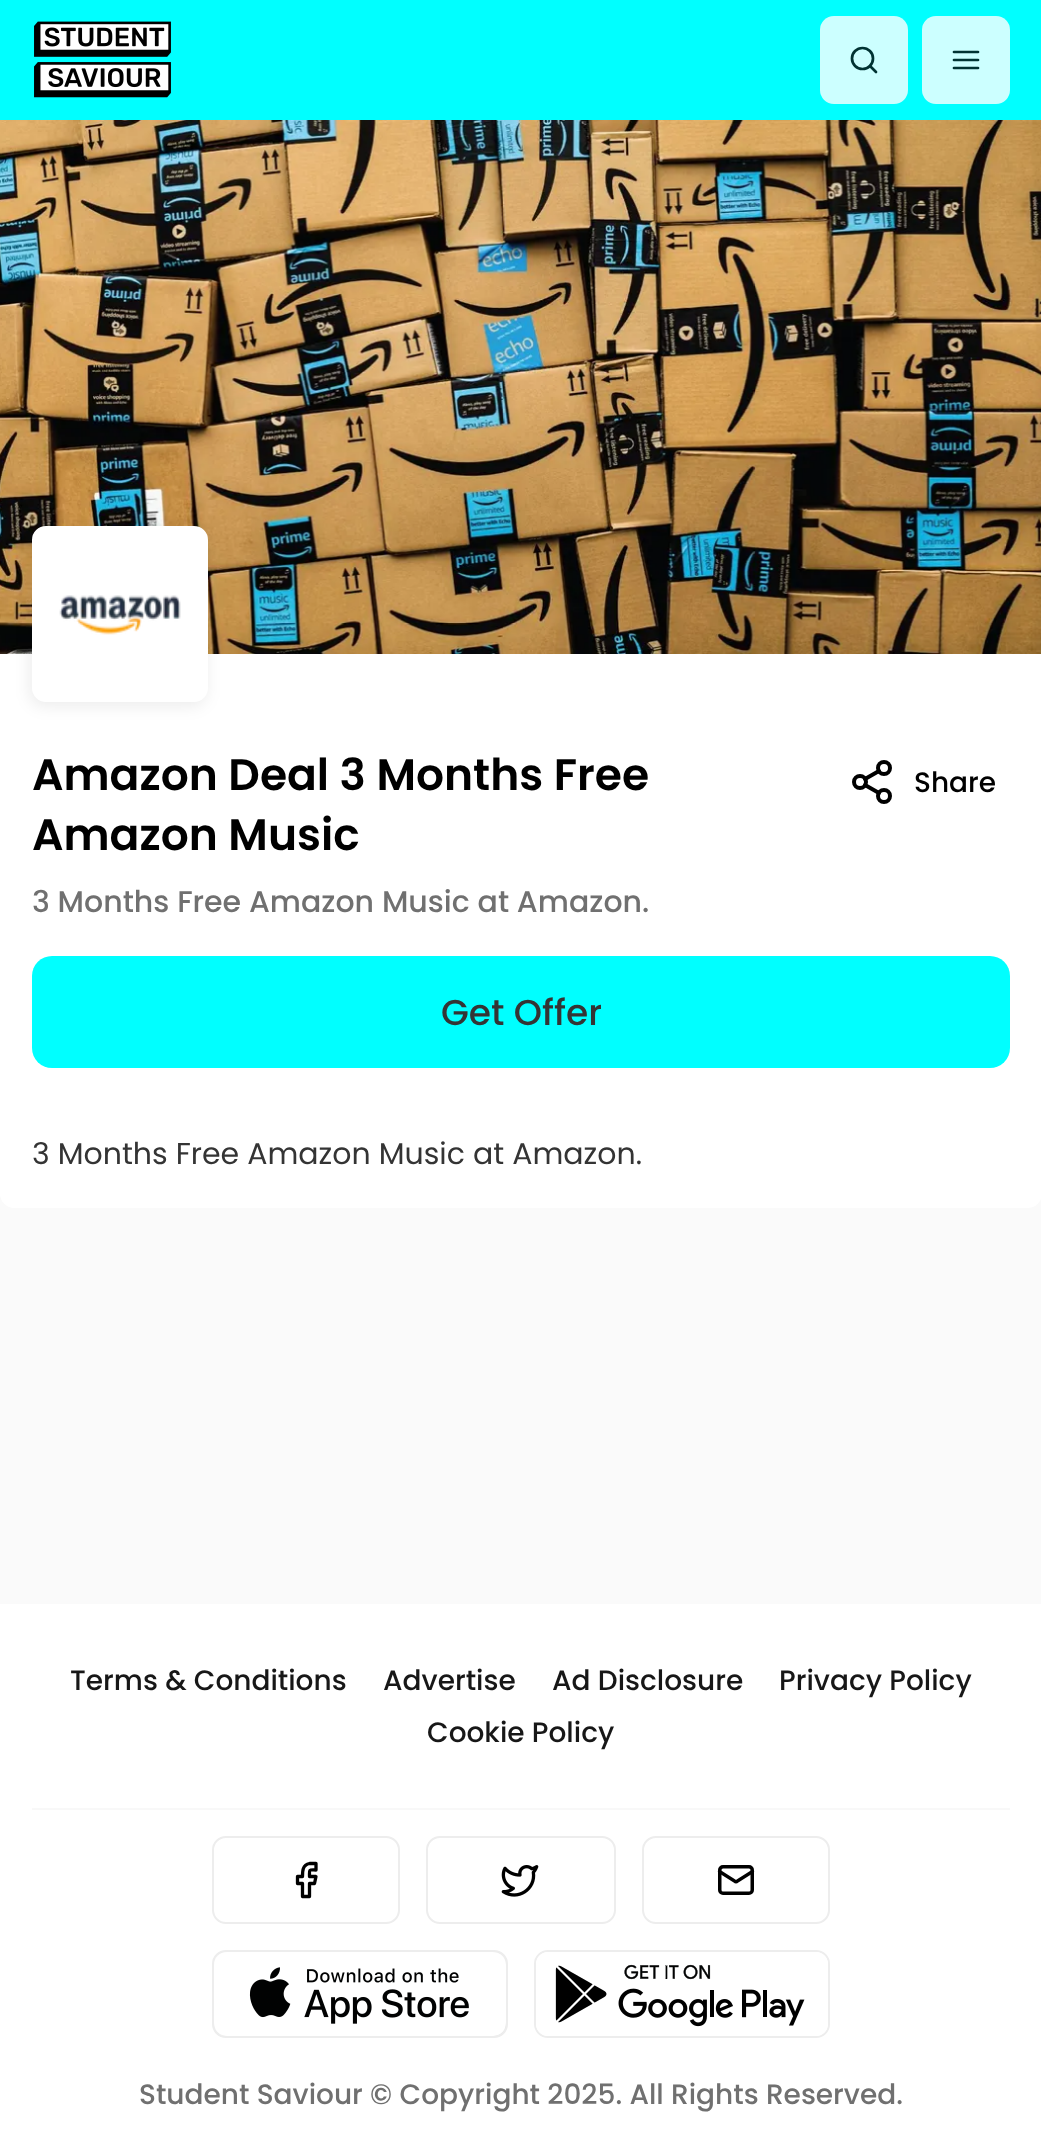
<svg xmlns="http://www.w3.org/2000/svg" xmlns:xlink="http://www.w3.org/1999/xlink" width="1041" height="2139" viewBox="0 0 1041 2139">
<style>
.cls-1{font:600 44px Poppins;fill:#000000}
.cls-2{font:500 28px Poppins;fill:#000000}
.cls-3{font:500 30px Poppins;fill:#707070}
.cls-4{font:500 36px Poppins;fill:#343434}
.cls-5{font:30px Poppins;fill:#343434}
.cls-6{font:500 28px Poppins;fill:#171717}
.cls-7{font:500 28px Poppins;fill:#707070}
</style>
<rect width="100%" height="100%" fill="#fafafa"/>
<rect fill="#00ffff" x="0" y="0" width="1041" height="120"/>
<image xlink:href="image0.png" x="34" y="21" width="137" height="77"/>
<rect fill="#ccffff" x="820" y="16" width="88" height="88" rx="14"/>
<circle fill="none" stroke="#003333" stroke-width="2.7" cx="862.5" cy="58.5" r="10.5"/>
<path fill="none" stroke="#003333" stroke-width="2.7" stroke-linecap="round" stroke-linejoin="round" d="M876 72L870 66"/>
<rect fill="#ccffff" x="922" y="16" width="88" height="88" rx="14"/>
<path fill="none" stroke="#003333" stroke-width="2.7" stroke-linecap="round" stroke-linejoin="round" d="M954 52H978M954 60H978M954 68H978"/>
<path fill="#ffffff" d="M0 120H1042V1194C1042 1201.5 1035.5 1208 1028 1208H14C6.5 1208 0 1201.5 0 1194Z"/>
<image xlink:href="image1.png" x="0" y="120" width="1041" height="534"/>
<rect fill="#000000" fill-opacity="0.08" filter="blur(8px)" x="30" y="530" width="176" height="176" rx="14"/>
<rect fill="#ffffff" stroke="#ffffff" stroke-width="14" x="39" y="533" width="162" height="162" rx="7"/>
<image xlink:href="image2.png" x="59" y="595" width="122" height="40"/>
<circle fill="none" stroke="#000000" stroke-width="4" cx="884" cy="768" r="6"/>
<circle fill="none" stroke="#000000" stroke-width="4" cx="860" cy="782" r="6"/>
<circle fill="none" stroke="#000000" stroke-width="4" cx="884" cy="796" r="6"/>
<path fill="none" stroke="#000000" stroke-width="4" stroke-linecap="round" stroke-linejoin="round" d="M865 785L879 793M879 771L865 779"/>
<rect fill="#00ffff" x="32" y="956" width="978" height="112" rx="20"/>
<rect fill="#ffffff" x="0" y="1604" width="1041" height="535"/>
<rect fill="#f8f8f8" x="32" y="1808" width="978" height="2"/>
<rect fill="none" stroke="#ededed" stroke-width="2" x="213" y="1837" width="186" height="86" rx="13"/>
<path fill="none" stroke="#000000" stroke-width="3.3" stroke-linecap="round" stroke-linejoin="round" d="M316 1863.5H309.5C302.5 1865 302.5 1871 302.5 1876.5H297.5V1883.5H302.5V1896.5H309.5V1883.5H314.5L316 1876.5H309.5C309.5 1869 308.5 1870 316 1870Z"/>
<rect fill="none" stroke="#ededed" stroke-width="2" x="427" y="1837" width="188" height="86" rx="13"/>
<image xlink:href="image3.png" x="501" y="1865" width="38" height="32"/>
<rect fill="none" stroke="#ededed" stroke-width="2" x="643" y="1837" width="186" height="86" rx="13"/>
<rect fill="none" stroke="#000000" stroke-width="3.5" x="719.75" y="1866.75" width="32.5" height="26.5" rx="3.25"/>
<path fill="none" stroke="#000000" stroke-width="3.3" stroke-linecap="round" stroke-linejoin="round" d="M752.5 1871.5L737.5 1881C736.5 1882 735.5 1882 734.5 1881L719.5 1871.5"/>
<rect fill="none" stroke="#ededed" stroke-width="2" x="213" y="1951" width="294" height="86" rx="13"/>
<image xlink:href="image4.png" x="214" y="1952" width="292" height="84"/>
<rect fill="none" stroke="#ededed" stroke-width="2" x="535" y="1951" width="294" height="86" rx="13"/>
<image xlink:href="image5.png" x="536" y="1952" width="292" height="84"/>
<text class="cls-1"><tspan x="32" y="790">Amazon Deal 3 Months Free</tspan><tspan x="32" y="850">Amazon Music</tspan></text>
<text class="cls-2" x="914" y="792">Share</text>
<text class="cls-3" x="32" y="912">3 Months Free Amazon Music at Amazon.</text>
<text class="cls-4" x="441" y="1025">Get Offer</text>
<text class="cls-5" x="32" y="1164">3 Months Free Amazon Music at Amazon.</text>
<text class="cls-6" x="70" y="1690">Terms &amp; Conditions</text>
<text class="cls-6" x="383" y="1690">Advertise</text>
<text class="cls-6" x="552" y="1690">Ad Disclosure</text>
<text class="cls-6" x="779" y="1690">Privacy Policy</text>
<text class="cls-6" x="427" y="1742">Cookie Policy</text>
<text class="cls-7" x="139" y="2104">Student Saviour © Copyright 2025. All Rights Reserved.</text>
</svg>
